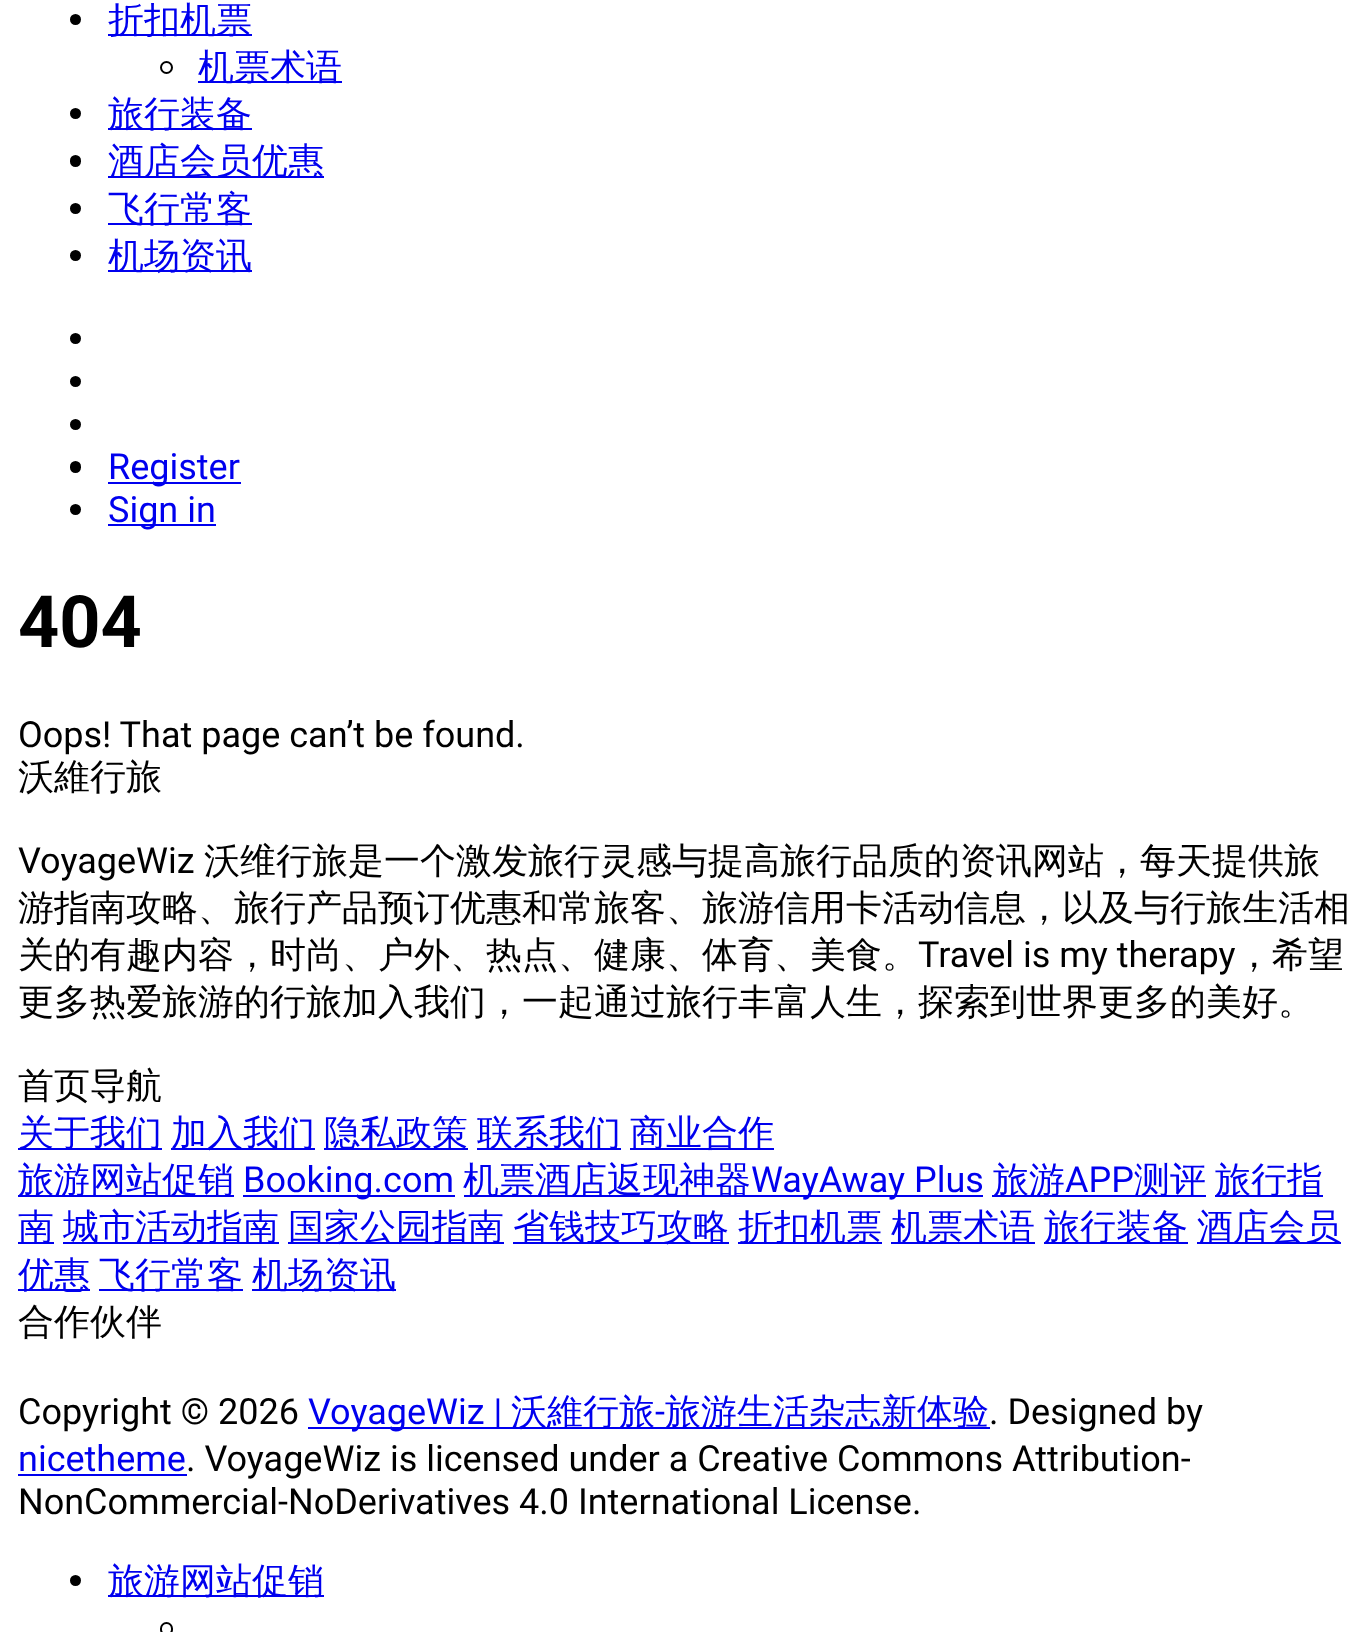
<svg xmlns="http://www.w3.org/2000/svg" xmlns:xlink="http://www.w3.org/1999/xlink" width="1370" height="1632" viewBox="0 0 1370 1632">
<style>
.cls-1{font:500 36px WenQuanYi Zen Hei;fill:#0000ee}
.cls-2{font:36px Roboto;fill:#0000ee}
.cls-3{font:bold 72px Roboto;fill:#000000}
.cls-4{font:36px Roboto;fill:#000000}
.cls-5{font:500 36px WenQuanYi Zen Hei;fill:#000000}
</style>
<rect width="100%" height="100%" fill="#ffffff"/>
<circle fill="#000000" cx="75.5" cy="19.5" r="5.5"/>
<rect fill="#0000ee" x="108" y="34" width="144" height="2"/>
<circle fill="none" stroke="#000000" stroke-width="2" cx="166.5" cy="67.5" r="5.5"/>
<rect fill="#0000ee" x="198" y="81" width="144" height="2"/>
<circle fill="#000000" cx="75.5" cy="113.5" r="5.5"/>
<rect fill="#0000ee" x="108" y="128" width="144" height="2"/>
<rect fill="#000000" x="70" y="155" width="11" height="12" rx="5.5"/>
<rect fill="#0000ee" x="108" y="176" width="216" height="2"/>
<circle fill="#000000" cx="75.5" cy="208.5" r="5.5"/>
<rect fill="#0000ee" x="108" y="223" width="144" height="2"/>
<circle fill="#000000" cx="75.5" cy="255.5" r="5.5"/>
<rect fill="#0000ee" x="108" y="270" width="144" height="2"/>
<circle fill="#000000" cx="75.5" cy="338.5" r="5.5"/>
<circle fill="#000000" cx="75.5" cy="381.5" r="5.5"/>
<circle fill="#000000" cx="75.5" cy="424.5" r="5.5"/>
<rect fill="#000000" x="70" y="461" width="11" height="12" rx="5.5"/>
<rect fill="#0000ee" x="108" y="482" width="133" height="2"/>
<circle fill="#000000" cx="75.5" cy="509.5" r="5.5"/>
<rect fill="#0000ee" x="108" y="524" width="108" height="2"/>
<rect fill="#0000ee" x="18" y="1148" width="144" height="2"/>
<rect fill="#0000ee" x="171" y="1148" width="144" height="2"/>
<rect fill="#0000ee" x="324" y="1148" width="144" height="2"/>
<rect fill="#0000ee" x="477" y="1148" width="144" height="2"/>
<rect fill="#0000ee" x="630" y="1148" width="144" height="2"/>
<rect fill="#0000ee" x="18" y="1195" width="216" height="2"/>
<rect fill="#0000ee" x="243" y="1195" width="212" height="2"/>
<rect fill="#0000ee" x="464" y="1195" width="519" height="2"/>
<rect fill="#0000ee" x="992" y="1195" width="214" height="2"/>
<rect fill="#0000ee" x="1215" y="1195" width="108" height="2"/>
<rect fill="#0000ee" x="18" y="1242" width="36" height="2"/>
<rect fill="#0000ee" x="63" y="1242" width="216" height="2"/>
<rect fill="#0000ee" x="288" y="1242" width="216" height="2"/>
<rect fill="#0000ee" x="513" y="1242" width="216" height="2"/>
<rect fill="#0000ee" x="738" y="1242" width="144" height="2"/>
<rect fill="#0000ee" x="891" y="1242" width="144" height="2"/>
<rect fill="#0000ee" x="1044" y="1242" width="144" height="2"/>
<rect fill="#0000ee" x="1197" y="1242" width="144" height="2"/>
<rect fill="#0000ee" x="18" y="1289" width="72" height="2"/>
<rect fill="#0000ee" x="99" y="1289" width="144" height="2"/>
<rect fill="#0000ee" x="252" y="1289" width="144" height="2"/>
<rect fill="#0000ee" x="308" y="1427" width="682" height="2"/>
<rect fill="#0000ee" x="18" y="1474" width="169" height="2"/>
<circle fill="#000000" cx="75.5" cy="1580.5" r="5.5"/>
<rect fill="#0000ee" x="108" y="1595" width="216" height="2"/>
<rect fill="none" stroke="#000000" stroke-width="2" x="161" y="1623" width="11" height="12" rx="5.5"/>
<text class="cls-1" x="108" y="32">折扣机票</text>
<text class="cls-1" x="198" y="79">机票术语</text>
<text class="cls-1"><tspan x="108" y="126">旅行装备</tspan><tspan x="108" y="173">酒店会员优惠</tspan><tspan x="108" y="221">飞行常客</tspan><tspan x="108" y="268">机场资讯</tspan></text>
<text class="cls-2"><tspan x="108" y="479">Register</tspan><tspan x="108" y="522">Sign in</tspan></text>
<text class="cls-3" x="18" y="647">404</text>
<text class="cls-4" x="18" y="747">Oops! That page can’t be found.</text>
<text class="cls-5" x="18" y="789">沃維行旅</text>
<text class="cls-4" x="18" y="873">VoyageWiz</text>
<text class="cls-5" x="204" y="873">沃维行旅是一个激发旅行灵感与提高旅行品质的资讯网站，每天提供旅</text>
<text class="cls-5"><tspan x="18" y="920">游指南攻略、旅行产品预订优惠和常旅客、旅游信用卡活动信息，以及与行旅生活相</tspan><tspan x="18" y="967">关的有趣内容，时尚、户外、热点、健康、体育、美食。</tspan></text>
<text class="cls-4" x="918" y="967">Travel is my therapy</text>
<text class="cls-5" x="1236" y="967">，希望</text>
<text class="cls-5" x="18" y="1014">更多热爱旅游的行旅加入我们，一起通过旅行丰富人生，探索到世界更多的美好。</text>
<text class="cls-5" x="18" y="1098">首页导航</text>
<text class="cls-1" x="18" y="1145">关于我们</text>
<text class="cls-1" x="171" y="1145">加入我们</text>
<text class="cls-1" x="324" y="1145">隐私政策</text>
<text class="cls-1" x="477" y="1145">联系我们</text>
<text class="cls-1" x="630" y="1145">商业合作</text>
<text class="cls-1" x="18" y="1192">旅游网站促销</text>
<text class="cls-2" x="243" y="1192">Booking.com</text>
<text class="cls-1" x="463" y="1192">机票酒店返现神器</text>
<text class="cls-2" x="751" y="1192">WayAway Plus</text>
<text class="cls-1" x="993" y="1192">旅游</text>
<text class="cls-2" x="1065" y="1192">APP</text>
<text class="cls-1" x="1134" y="1192">测评</text>
<text class="cls-1" x="1215" y="1192">旅行指</text>
<text class="cls-1" x="18" y="1239">南</text>
<text class="cls-1" x="63" y="1239">城市活动指南</text>
<text class="cls-1" x="288" y="1239">国家公园指南</text>
<text class="cls-1" x="513" y="1239">省钱技巧攻略</text>
<text class="cls-1" x="738" y="1239">折扣机票</text>
<text class="cls-1" x="891" y="1239">机票术语</text>
<text class="cls-1" x="1044" y="1239">旅行装备</text>
<text class="cls-1" x="1197" y="1239">酒店会员</text>
<text class="cls-1" x="18" y="1287">优惠</text>
<text class="cls-1" x="99" y="1287">飞行常客</text>
<text class="cls-1" x="252" y="1287">机场资讯</text>
<text class="cls-5" x="18" y="1334">合作伙伴</text>
<text class="cls-4" x="18" y="1424">Copyright © 2026</text>
<text class="cls-2" x="308" y="1424">VoyageWiz |</text>
<text class="cls-1" x="511" y="1424">沃維行旅</text>
<text class="cls-2" x="655" y="1424">-</text>
<text class="cls-1" x="665" y="1424">旅游生活杂志新体验</text>
<text class="cls-4" x="989" y="1424">. Designed by</text>
<text class="cls-2" x="18" y="1471">nicetheme</text>
<text class="cls-4" x="186" y="1471">. VoyageWiz is licensed under a Creative Commons Attribution-</text>
<text class="cls-4" x="18" y="1514">NonCommercial-NoDerivatives 4.0 International License.</text>
<text class="cls-1" x="108" y="1593">旅游网站促销</text>
</svg>
